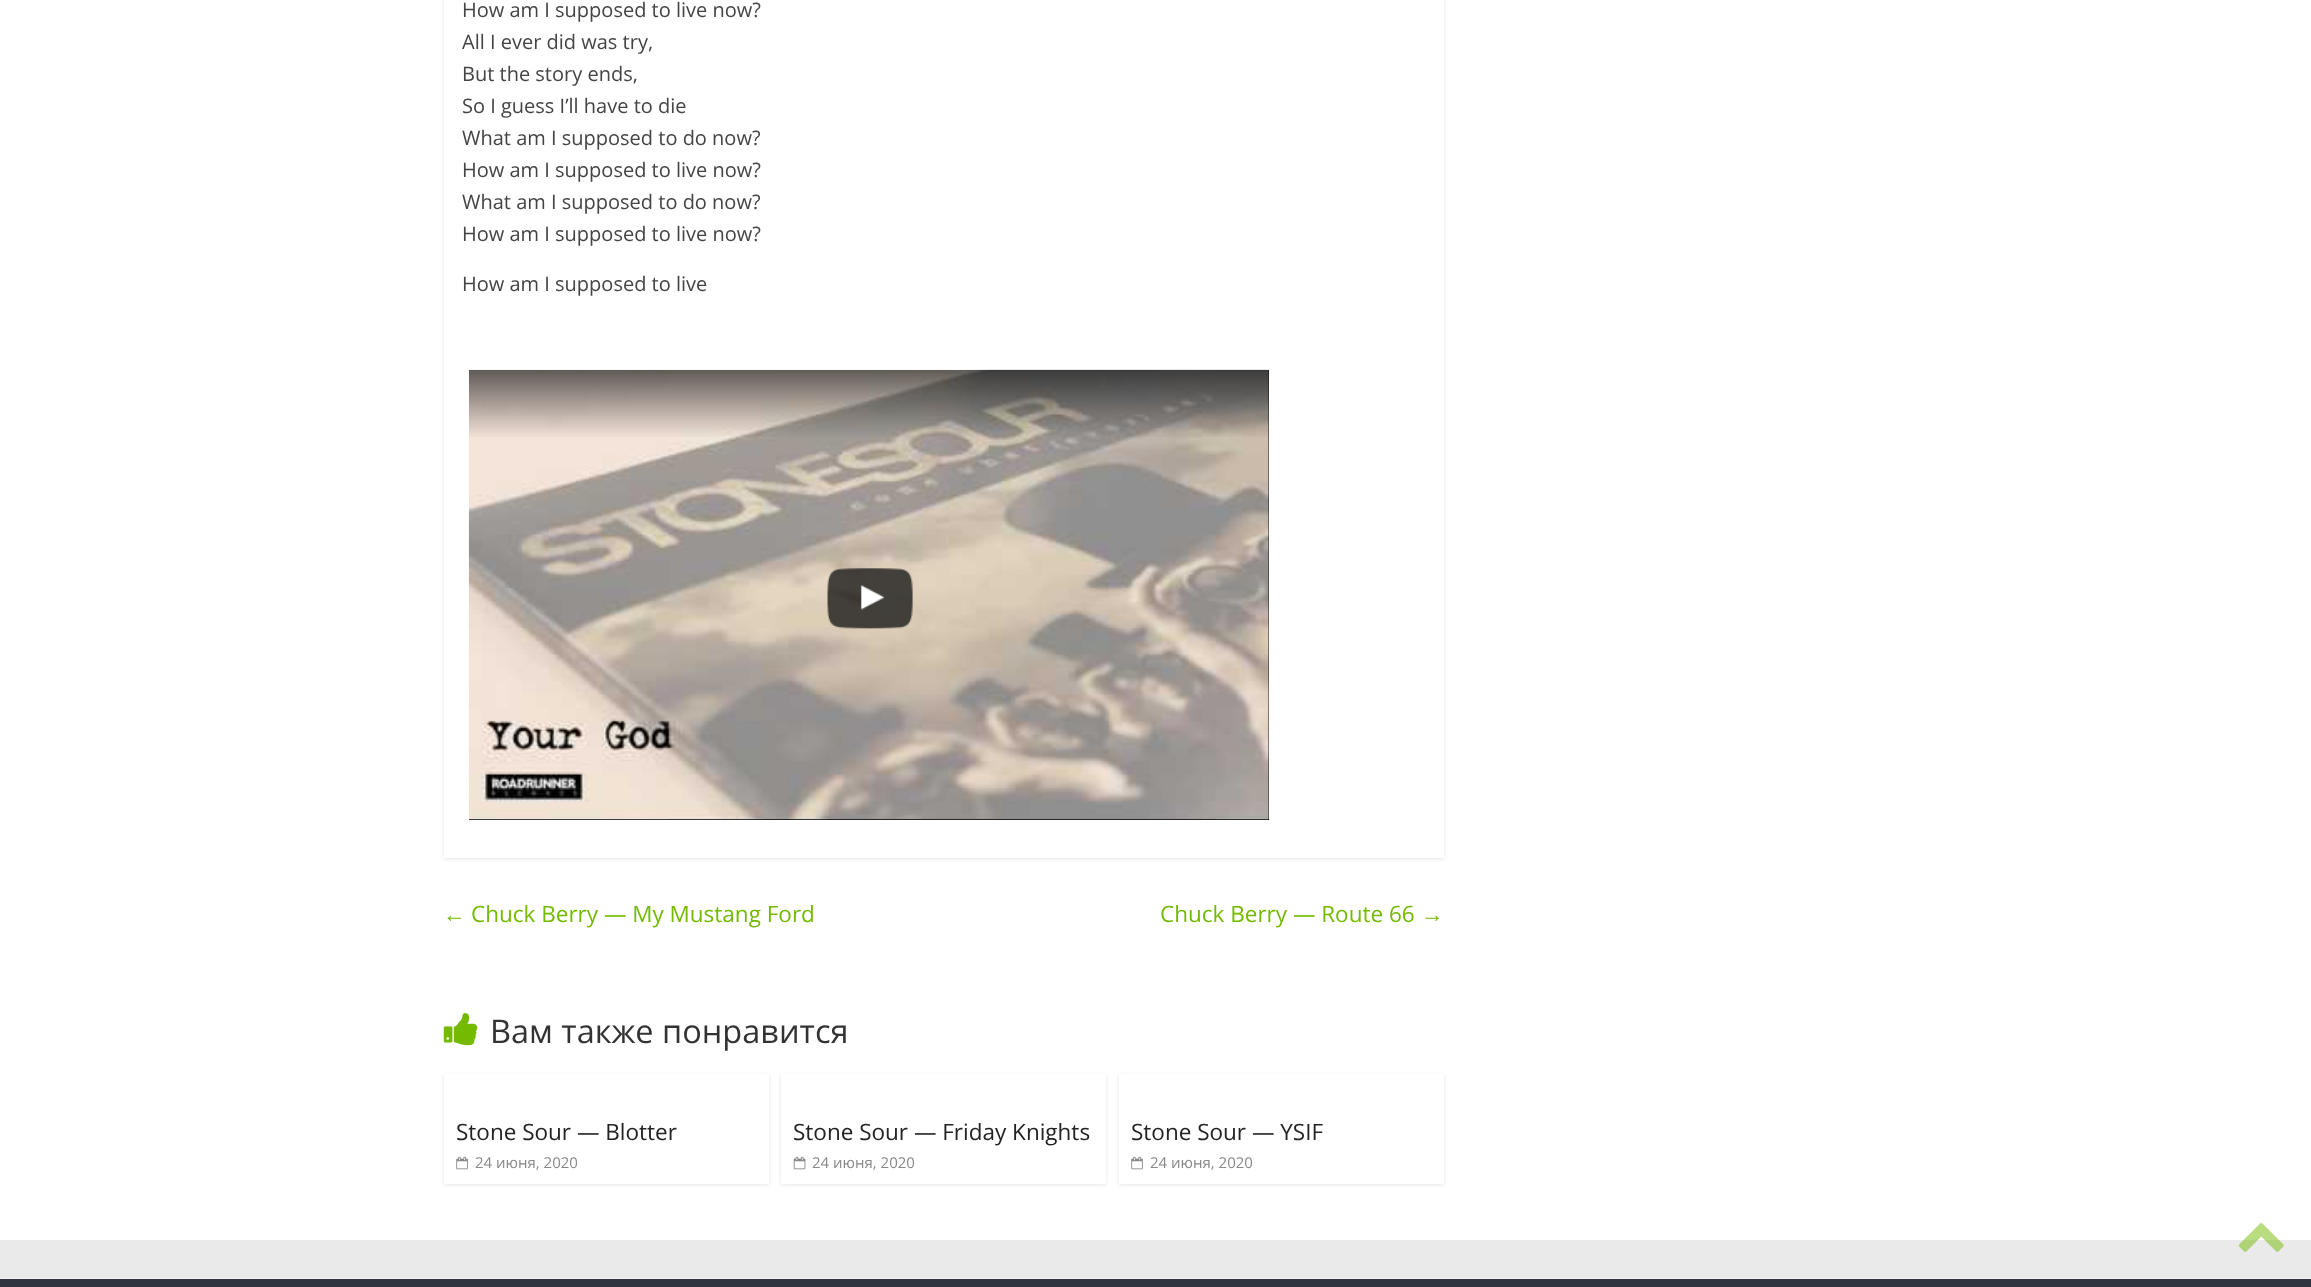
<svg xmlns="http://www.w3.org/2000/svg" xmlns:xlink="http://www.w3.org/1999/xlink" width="2311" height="1287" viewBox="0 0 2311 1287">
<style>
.cls-1{font:20px Open Sans;fill:#444444}
.cls-2{font:22.5px Liberation Serif;fill:#73ba01}
.cls-3{font:22.5px Open Sans;fill:#73ba01}
.cls-4{font:32.5px Open Sans;fill:#333333}
.cls-5{font:22.5px Open Sans;fill:#232323}
.cls-6{font:15px Open Sans;fill:#888888}
</style>
<defs>
<clipPath id="clip1"><path d="M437 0H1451V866H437ZM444-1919H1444V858H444Z" clip-rule="evenodd"/></clipPath>
<linearGradient id="g1" gradientUnits="userSpaceOnUse" x1="869" y1="370" x2="869" y2="439"><stop offset="0" stop-color="#000000" stop-opacity="0.6"/><stop offset="1" stop-color="#000000" stop-opacity="0"/></linearGradient>
<clipPath id="clip2"><path d="M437 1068H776V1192H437ZM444 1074H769V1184H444Z" clip-rule="evenodd"/></clipPath>
<clipPath id="clip3"><path d="M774 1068H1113V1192H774ZM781 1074H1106V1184H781Z" clip-rule="evenodd"/></clipPath>
<clipPath id="clip4"><path d="M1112 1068H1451V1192H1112ZM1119 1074H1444V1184H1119Z" clip-rule="evenodd"/></clipPath>
</defs>
<rect width="100%" height="100%" fill="#eaeaea"/>
<rect fill="#ffffff" x="0" y="0" width="2311" height="1240"/>
<g clip-path="url(#clip1)">
<rect fill="#000000" fill-opacity="0.1" filter="blur(2px)" x="444" y="-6" width="1000" height="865"/>
</g>
<rect fill="#000000" x="469" y="370" width="800" height="450"/>
<image xlink:href="image0.png" x="468" y="369" width="801" height="451"/>
<rect fill="url(#g1)" x="469" y="370" width="800" height="67"/>
<image xlink:href="image1.png" x="827" y="568" width="86" height="61"/>
<image xlink:href="image2.png" x="443" y="1013" width="35" height="33"/>
<g clip-path="url(#clip2)">
<rect fill="#000000" fill-opacity="0.1" filter="blur(2px)" x="444" y="1075" width="325" height="110"/>
</g>
<image xlink:href="image3.png" x="456" y="1156" width="12" height="14"/>
<g clip-path="url(#clip3)">
<rect fill="#000000" fill-opacity="0.1" filter="blur(2px)" x="781" y="1075" width="325" height="110"/>
</g>
<image xlink:href="image4.png" x="793" y="1156" width="13" height="14"/>
<g clip-path="url(#clip4)">
<rect fill="#000000" fill-opacity="0.1" filter="blur(2px)" x="1119" y="1075" width="325" height="110"/>
</g>
<image xlink:href="image3.png" x="1131" y="1156" width="12" height="14"/>
<image xlink:href="image5.png" x="2238" y="1223" width="46" height="29"/>
<rect fill="#303440" x="0" y="1279" width="2311" height="8"/>
<rect fill="#f2f2f2" x="0" y="1278" width="2311" height="1"/>
<text class="cls-1"><tspan x="462" y="17">How am I supposed to live now?</tspan><tspan x="462" y="49">All I ever did was try,</tspan><tspan x="462" y="81">But the story ends,</tspan><tspan x="462" y="113">So I guess I’ll have to die</tspan><tspan x="462" y="145">What am I supposed to do now?</tspan><tspan x="462" y="177">How am I supposed to live now?</tspan><tspan x="462" y="209">What am I supposed to do now?</tspan><tspan x="462" y="241">How am I supposed to live now?</tspan></text>
<text class="cls-1" x="462" y="291">How am I supposed to live</text>
<text class="cls-2" x="443" y="922">←</text>
<text class="cls-3" x="471" y="922">Chuck Berry — My Mustang Ford</text>
<text class="cls-3" x="1160" y="922">Chuck Berry — Route 66</text>
<text class="cls-2" x="1421" y="922">→</text>
<text class="cls-4" x="490" y="1043">Вам также понравится</text>
<text class="cls-5" x="456" y="1140">Stone Sour — Blotter</text>
<text class="cls-6" x="475" y="1168">24 июня, 2020</text>
<text class="cls-5" x="793" y="1140">Stone Sour — Friday Knights</text>
<text class="cls-6" x="812" y="1168">24 июня, 2020</text>
<text class="cls-5" x="1131" y="1140">Stone Sour — YSIF</text>
<text class="cls-6" x="1150" y="1168">24 июня, 2020</text>
</svg>
